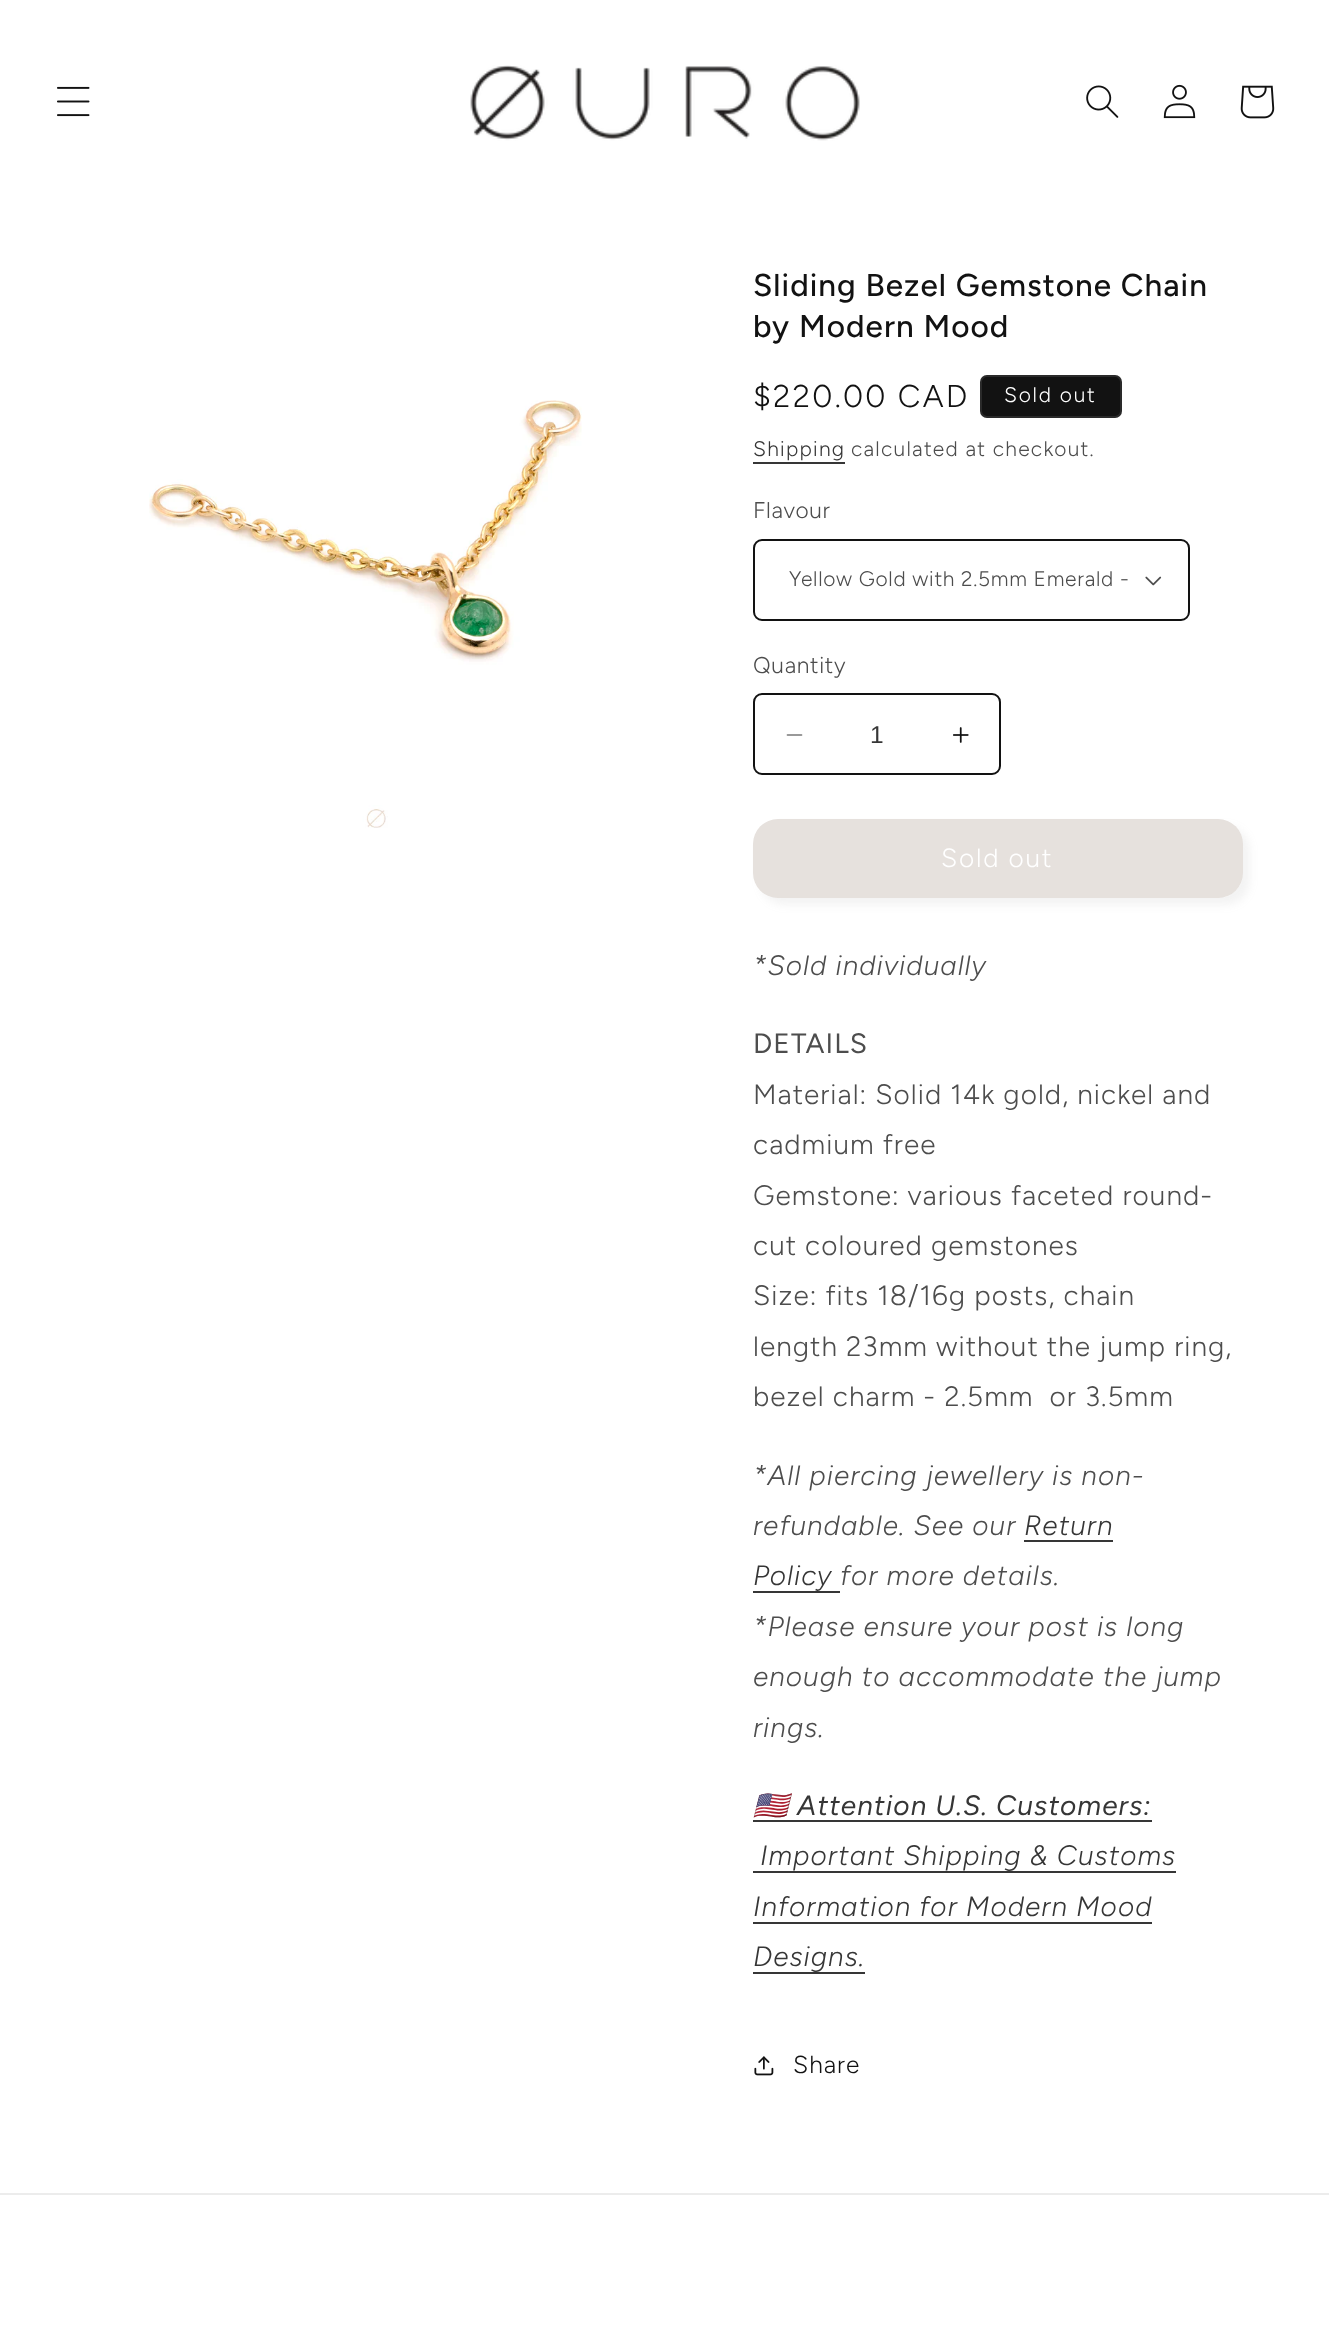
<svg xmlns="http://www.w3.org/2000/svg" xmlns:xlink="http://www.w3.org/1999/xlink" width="1329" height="2344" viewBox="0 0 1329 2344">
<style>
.cls-1{font:500 31.5px Figtree;letter-spacing:1.05px;fill:#121212}
.cls-2{font:300 31.5px Figtree;letter-spacing:2.25px;fill:#121212}
.cls-3{font:300 21px Figtree;letter-spacing:1.75px;fill:#ffffff}
.cls-4{font:300 21px Figtree;letter-spacing:1.25px;fill:#363636}
.cls-5{font:300 21px Figtree;letter-spacing:1.25px;fill:#4d4d4d}
.cls-6{font:300 22.75px Figtree;letter-spacing:0.7px;fill:#4d4d4d}
.cls-7{font:300 21px Figtree;letter-spacing:0.7px;fill:#4d4d4d}
.cls-8{font:24.5px Liberation Sans;fill:#363636}
.cls-9{font:300 26.25px Figtree;letter-spacing:1.75px;fill:#ffffff}
.cls-10{font:italic 300 28px Figtree;letter-spacing:1.05px;fill:#4d4d4d}
.cls-11{font:28px Figtree;letter-spacing:1.05px;fill:#4d4d4d}
.cls-12{font:300 28px Figtree;letter-spacing:1.05px;fill:#4d4d4d}
.cls-13{font:italic 300 28px Figtree;letter-spacing:1.05px;fill:#363636}
.cls-14{font:italic 28px Noto Color Emoji;letter-spacing:1.05px;fill:#363636}
.cls-15{font:italic 28px Figtree;letter-spacing:1.05px;fill:#363636}
.cls-16{font:300 24.5px Figtree;letter-spacing:1.05px;fill:#121212}
</style>
<defs>
<clipPath id="clip1"><path d="M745 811H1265V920H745ZM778 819H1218C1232 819 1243 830 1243 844V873C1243 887 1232 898 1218 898H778C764 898 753 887 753 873V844C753 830 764 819 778 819Z" clip-rule="evenodd"/></clipPath>
</defs>
<rect width="100%" height="100%" fill="#ffffff"/>
<image xlink:href="image0.png" x="57" y="86" width="33" height="31"/>
<image xlink:href="image1.png" x="470" y="65" width="390" height="76"/>
<image xlink:href="image2.png" x="1086" y="85" width="33" height="33"/>
<image xlink:href="image3.png" x="1163" y="84" width="33" height="35"/>
<image xlink:href="image4.png" x="1240" y="85" width="35" height="34"/>
<image xlink:href="image5.png" x="149" y="400" width="433" height="428"/>
<rect fill="#121212" x="980" y="375" width="142" height="43" rx="7"/>
<rect fill="none" stroke="#ffffff" stroke-opacity="0.1" stroke-width="2" x="981" y="376" width="140" height="41" rx="6"/>
<rect fill="#363636" x="753" y="462" width="92" height="2"/>
<image xlink:href="image6.png" x="1145" y="576" width="17" height="10"/>
<rect fill="none" stroke="#121212" stroke-width="2" x="754" y="540" width="435" height="80" rx="8"/>
<image xlink:href="image7.png" x="786" y="734" width="17" height="2"/>
<image xlink:href="image8.png" x="953" y="727" width="16" height="16"/>
<rect fill="none" stroke="#121212" stroke-width="2" x="754" y="694" width="246" height="80" rx="8"/>
<rect fill="#e6e1dd" x="753" y="819" width="490" height="79" rx="25"/>
<g clip-path="url(#clip1)">
<rect fill="#898989" fill-opacity="0.1" filter="blur(4.5px)" x="760" y="826" width="490" height="79" rx="25"/>
</g>
<rect fill="#363636" x="1024" y="1540" width="89" height="2"/>
<rect fill="#363636" x="753" y="1591" width="87" height="2"/>
<rect fill="#363636" x="753" y="1820" width="399" height="2"/>
<rect fill="#363636" x="753" y="1871" width="423" height="2"/>
<rect fill="#363636" x="753" y="1922" width="399" height="2"/>
<rect fill="#363636" x="753" y="1972" width="112" height="2"/>
<image xlink:href="image9.png" x="754" y="2056" width="20" height="20"/>
<rect fill="#ececec" x="0" y="2193" width="1329" height="2"/>
<text class="cls-1"><tspan x="753" y="296">Sliding Bezel Gemstone Chain</tspan><tspan x="753" y="337">by Modern Mood</tspan></text>
<text class="cls-2" x="753" y="407">$220.00 CAD</text>
<text class="cls-3" x="1004" y="402">Sold out</text>
<text class="cls-4" x="753" y="456">Shipping</text>
<text class="cls-5" x="851" y="456">calculated at checkout.</text>
<text class="cls-6" x="753" y="518">Flavour</text>
<text class="cls-7" x="789" y="586">Yellow Gold with 2.5mm Emerald -</text>
<text class="cls-6" x="753" y="673">Quantity</text>
<text class="cls-8" x="870" y="743">1</text>
<text class="cls-9" x="941" y="867">Sold out</text>
<text class="cls-10" x="753" y="975">*Sold individually</text>
<text class="cls-11" x="753" y="1053">DETAILS</text>
<text class="cls-12" xml:space="preserve"><tspan x="753" y="1104">Material: Solid 14k gold, nickel and</tspan><tspan x="753" y="1154">cadmium free</tspan><tspan x="753" y="1205">Gemstone: various faceted round-</tspan><tspan x="753" y="1255">cut coloured gemstones</tspan><tspan x="753" y="1305">Size: fits 18/16g posts, chain</tspan><tspan x="753" y="1356">length 23mm without the jump ring,</tspan><tspan x="753" y="1406">bezel charm - 2.5mm  or 3.5mm</tspan></text>
<text class="cls-10"><tspan x="753" y="1485">*All piercing jewellery is non-</tspan><tspan x="753" y="1535">refundable. See our</tspan></text>
<text class="cls-13" x="1024" y="1535">Return</text>
<text class="cls-13" x="753" y="1585">Policy</text>
<text class="cls-10" x="840" y="1585">for more details.</text>
<text class="cls-10"><tspan x="753" y="1636">*Please ensure your post is long</tspan><tspan x="753" y="1686">enough to accommodate the jump</tspan><tspan x="753" y="1737">rings.</tspan></text>
<text class="cls-14" x="753" y="1815">🇺🇸</text>
<text class="cls-15" x="797" y="1815">Attention U.S. Customers:</text>
<text class="cls-13" x="760" y="1865">Important Shipping &amp; Customs</text>
<text class="cls-13"><tspan x="753" y="1916">Information for Modern Mood</tspan><tspan x="753" y="1966">Designs.</tspan></text>
<text class="cls-16" x="793" y="2073">Share</text>
</svg>
